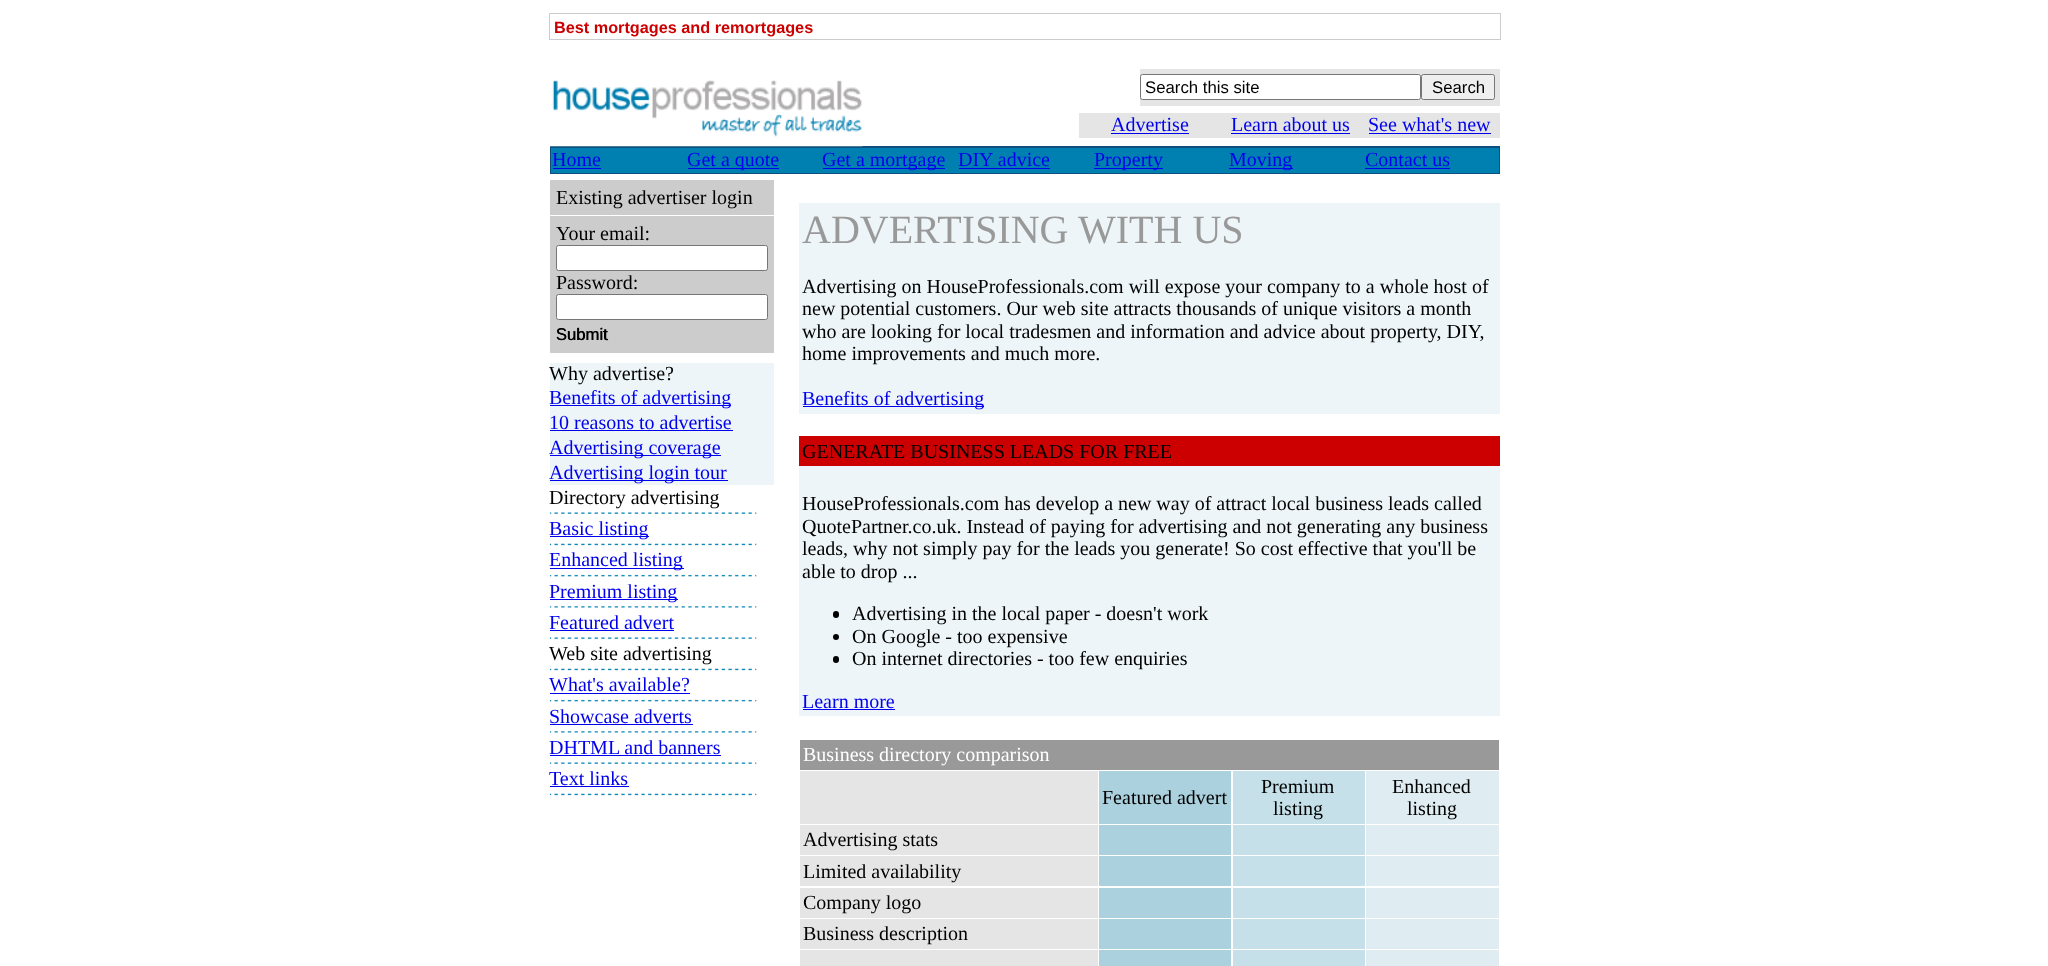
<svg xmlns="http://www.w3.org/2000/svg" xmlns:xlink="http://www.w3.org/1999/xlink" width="2048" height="966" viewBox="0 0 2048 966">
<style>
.cls-1{font:bold 16.25px Liberation Sans;fill:#cc0000}
.cls-2{font:16.75px Liberation Sans;fill:#000000}
.cls-3{font:20px Liberation Serif;fill:#0000ee}
.cls-4{font:20px Liberation Serif;fill:#000000}
.cls-5{font:40px Liberation Serif;fill:#999999}
.cls-6{font:20px Liberation Serif;fill:#ffffff}
</style>
<rect width="100%" height="100%" fill="#ffffff"/>
<rect fill="#cccccc" x="549" y="13" width="952" height="27"/>
<rect fill="#ffffff" x="550" y="14" width="950" height="25"/>
<rect fill="#0f4f7f" x="550" y="146" width="950" height="28"/>
<image xlink:href="image0.png" x="550" y="80" width="313" height="67"/>
<rect fill="#e5e5e5" x="1140" y="69" width="360" height="37"/>
<rect fill="#ffffff" stroke="#767676" x="1140.5" y="74.5" width="280" height="25" rx="2"/>
<rect fill="#efefef" stroke="#767676" x="1421.5" y="74.5" width="73" height="25" rx="2"/>
<rect fill="#e5e5e5" x="1079" y="113" width="421" height="25"/>
<rect fill="#0000ee" x="1111" y="133" width="78" height="1"/>
<rect fill="#0000ee" x="1231" y="133" width="119" height="1"/>
<rect fill="#0000ee" x="1369" y="133" width="122" height="1"/>
<rect fill="#0080b0" x="551" y="148" width="948" height="25"/>
<rect fill="#0000ee" x="553" y="168" width="48" height="1"/>
<rect fill="#0000ee" x="688" y="168" width="91" height="1"/>
<rect fill="#0000ee" x="823" y="168" width="122" height="1"/>
<rect fill="#0000ee" x="959" y="168" width="91" height="1"/>
<rect fill="#0000ee" x="1094" y="168" width="69" height="1"/>
<rect fill="#0000ee" x="1229" y="168" width="64" height="1"/>
<rect fill="#0000ee" x="1365" y="168" width="85" height="1"/>
<rect fill="#cccccc" x="550" y="180" width="224" height="35"/>
<rect fill="#cccccc" x="550" y="216" width="224" height="137"/>
<rect fill="#ffffff" stroke="#767676" x="556.5" y="245.5" width="211" height="25" rx="2"/>
<rect fill="#ffffff" stroke="#767676" x="556.5" y="294.5" width="211" height="25" rx="2"/>
<image xlink:href="image1.png" x="556" y="328" width="52" height="12"/>
<rect fill="#edf5f8" x="550" y="363" width="224" height="122"/>
<rect fill="#0000ee" x="550" y="405" width="181" height="1"/>
<rect fill="#0000ee" x="550" y="430" width="183" height="1"/>
<rect fill="#0000ee" x="550" y="455" width="171" height="1"/>
<rect fill="#0000ee" x="550" y="480" width="178" height="1"/>
<image xlink:href="image2.png" x="550" y="512" width="207" height="2"/>
<rect fill="#0000ee" x="550" y="536" width="99" height="1"/>
<image xlink:href="image3.png" x="550" y="543" width="207" height="3"/>
<rect fill="#0000ee" x="550" y="568" width="134" height="1"/>
<image xlink:href="image4.png" x="550" y="574" width="207" height="3"/>
<rect fill="#0000ee" x="550" y="599" width="128" height="1"/>
<image xlink:href="image5.png" x="550" y="606" width="207" height="2"/>
<rect fill="#0000ee" x="550" y="630" width="124" height="1"/>
<image xlink:href="image2.png" x="550" y="637" width="207" height="2"/>
<image xlink:href="image3.png" x="550" y="668" width="207" height="3"/>
<rect fill="#0000ee" x="550" y="693" width="140" height="1"/>
<image xlink:href="image4.png" x="550" y="699" width="207" height="3"/>
<rect fill="#0000ee" x="550" y="724" width="143" height="1"/>
<image xlink:href="image5.png" x="550" y="731" width="207" height="2"/>
<rect fill="#0000ee" x="550" y="755" width="171" height="1"/>
<image xlink:href="image2.png" x="550" y="762" width="207" height="2"/>
<rect fill="#0000ee" x="550" y="786" width="79" height="1"/>
<image xlink:href="image3.png" x="550" y="793" width="207" height="3"/>
<rect fill="#edf5f8" x="799" y="203" width="701" height="211"/>
<rect fill="#0000ee" x="803" y="406" width="181" height="1"/>
<rect fill="#cc0000" x="799" y="436" width="701" height="30"/>
<rect fill="#edf5f8" x="799" y="466" width="701" height="250"/>
<rect fill="#000000" x="833" y="611" width="6" height="7" rx="3"/>
<circle fill="#000000" cx="836" cy="637" r="3"/>
<rect fill="#000000" x="833" y="656" width="6" height="7" rx="3"/>
<rect fill="#0000ee" x="803" y="709" width="92" height="1"/>
<rect fill="#999999" x="800" y="740" width="699" height="30"/>
<rect fill="#e5e5e5" x="800" y="771" width="298" height="53"/>
<rect fill="#aad1dd" x="1099" y="771" width="132" height="53"/>
<rect fill="#c5e0e9" x="1233" y="771" width="132" height="53"/>
<rect fill="#dfedf2" x="1366" y="771" width="133" height="53"/>
<rect fill="#e5e5e5" x="800" y="825" width="298" height="30"/>
<rect fill="#aad1dd" x="1099" y="825" width="132" height="30"/>
<rect fill="#c5e0e9" x="1233" y="825" width="132" height="30"/>
<rect fill="#dfedf2" x="1366" y="825" width="133" height="30"/>
<rect fill="#e5e5e5" x="800" y="856" width="298" height="30"/>
<rect fill="#aad1dd" x="1099" y="856" width="132" height="30"/>
<rect fill="#c5e0e9" x="1233" y="856" width="132" height="30"/>
<rect fill="#dfedf2" x="1366" y="856" width="133" height="30"/>
<rect fill="#e5e5e5" x="800" y="888" width="298" height="30"/>
<rect fill="#aad1dd" x="1099" y="888" width="132" height="30"/>
<rect fill="#c5e0e9" x="1233" y="888" width="132" height="30"/>
<rect fill="#dfedf2" x="1366" y="888" width="133" height="30"/>
<rect fill="#e5e5e5" x="800" y="919" width="298" height="30"/>
<rect fill="#aad1dd" x="1099" y="919" width="132" height="30"/>
<rect fill="#c5e0e9" x="1233" y="919" width="132" height="30"/>
<rect fill="#dfedf2" x="1366" y="919" width="133" height="30"/>
<rect fill="#e5e5e5" x="800" y="950" width="298" height="16"/>
<rect fill="#aad1dd" x="1099" y="950" width="132" height="16"/>
<rect fill="#c5e0e9" x="1233" y="950" width="132" height="16"/>
<rect fill="#dfedf2" x="1366" y="950" width="133" height="16"/>
<text class="cls-1" x="554" y="33">Best mortgages and remortgages</text>
<text class="cls-2" x="1145" y="93">Search this site</text>
<text class="cls-2" x="1432" y="93">Search</text>
<text class="cls-3" x="1111" y="131">Advertise</text>
<text class="cls-3" x="1231" y="131">Learn about us</text>
<text class="cls-3" x="1368" y="131">See what's new</text>
<text class="cls-3" x="552" y="166">Home</text>
<text class="cls-3" x="687" y="166">Get a quote</text>
<text class="cls-3" x="822" y="166">Get a mortgage</text>
<text class="cls-3" x="958" y="166">DIY advice</text>
<text class="cls-3" x="1094" y="166">Property</text>
<text class="cls-3" x="1229" y="166">Moving</text>
<text class="cls-3" x="1365" y="166">Contact us</text>
<text class="cls-4"><tspan x="556" y="204">Existing advertiser login</tspan><tspan x="556" y="240">Your email:</tspan></text>
<text class="cls-4" x="556" y="289">Password:</text>
<text class="cls-2" x="556" y="340">Submit</text>
<text class="cls-4" x="549" y="380">Why advertise?</text>
<text class="cls-3"><tspan x="549" y="404">Benefits of advertising</tspan><tspan x="549" y="429">10 reasons to advertise</tspan><tspan x="549" y="454">Advertising coverage</tspan><tspan x="549" y="479">Advertising login tour</tspan></text>
<text class="cls-4" x="549" y="504">Directory advertising</text>
<text class="cls-3"><tspan x="549" y="535">Basic listing</tspan><tspan x="549" y="566">Enhanced listing</tspan><tspan x="549" y="598">Premium listing</tspan><tspan x="549" y="629">Featured advert</tspan></text>
<text class="cls-4" x="549" y="660">Web site advertising</text>
<text class="cls-3"><tspan x="549" y="691">What's available?</tspan><tspan x="549" y="723">Showcase adverts</tspan><tspan x="549" y="754">DHTML and banners</tspan><tspan x="549" y="785">Text links</tspan></text>
<text class="cls-5" x="802" y="243">ADVERTISING</text>
<text class="cls-5" x="1078" y="243">WITH US</text>
<text class="cls-4"><tspan x="802" y="293">Advertising on HouseProfessionals.com will expose your company to a whole host of</tspan><tspan x="802" y="315">new potential customers. Our web site attracts thousands of unique visitors a month</tspan><tspan x="802" y="338">who are looking for local tradesmen and information and advice about property, DIY,</tspan><tspan x="802" y="360">home improvements and much more.</tspan></text>
<text class="cls-3" x="802" y="405">Benefits of advertising</text>
<text class="cls-4" x="802" y="458">GENERATE BUSINESS LEADS FOR FREE</text>
<text class="cls-4"><tspan x="802" y="510">HouseProfessionals.com has develop a new way of attract local business leads called</tspan><tspan x="802" y="533">QuotePartner.co.uk. Instead of paying for advertising and not generating any business</tspan><tspan x="802" y="555">leads, why not simply pay for the leads you generate! So cost effective that you'll be</tspan><tspan x="802" y="578">able to drop ...</tspan></text>
<text class="cls-4"><tspan x="852" y="620">Advertising in the local paper - doesn't work</tspan><tspan x="852" y="643">On Google - too expensive</tspan><tspan x="852" y="665">On internet directories - too few enquiries</tspan></text>
<text class="cls-3" x="802" y="708">Learn more</text>
<text class="cls-6" x="803" y="761">Business directory comparison</text>
<text class="cls-4" x="1102" y="804">Featured advert</text>
<text class="cls-4" x="1261" y="793">Premium</text>
<text class="cls-4" x="1273" y="815">listing</text>
<text class="cls-4" x="1392" y="793">Enhanced</text>
<text class="cls-4" x="1407" y="815">listing</text>
<text class="cls-4"><tspan x="803" y="846">Advertising stats</tspan><tspan x="803" y="878">Limited availability</tspan><tspan x="803" y="909">Company logo</tspan><tspan x="803" y="940">Business description</tspan></text>
</svg>
